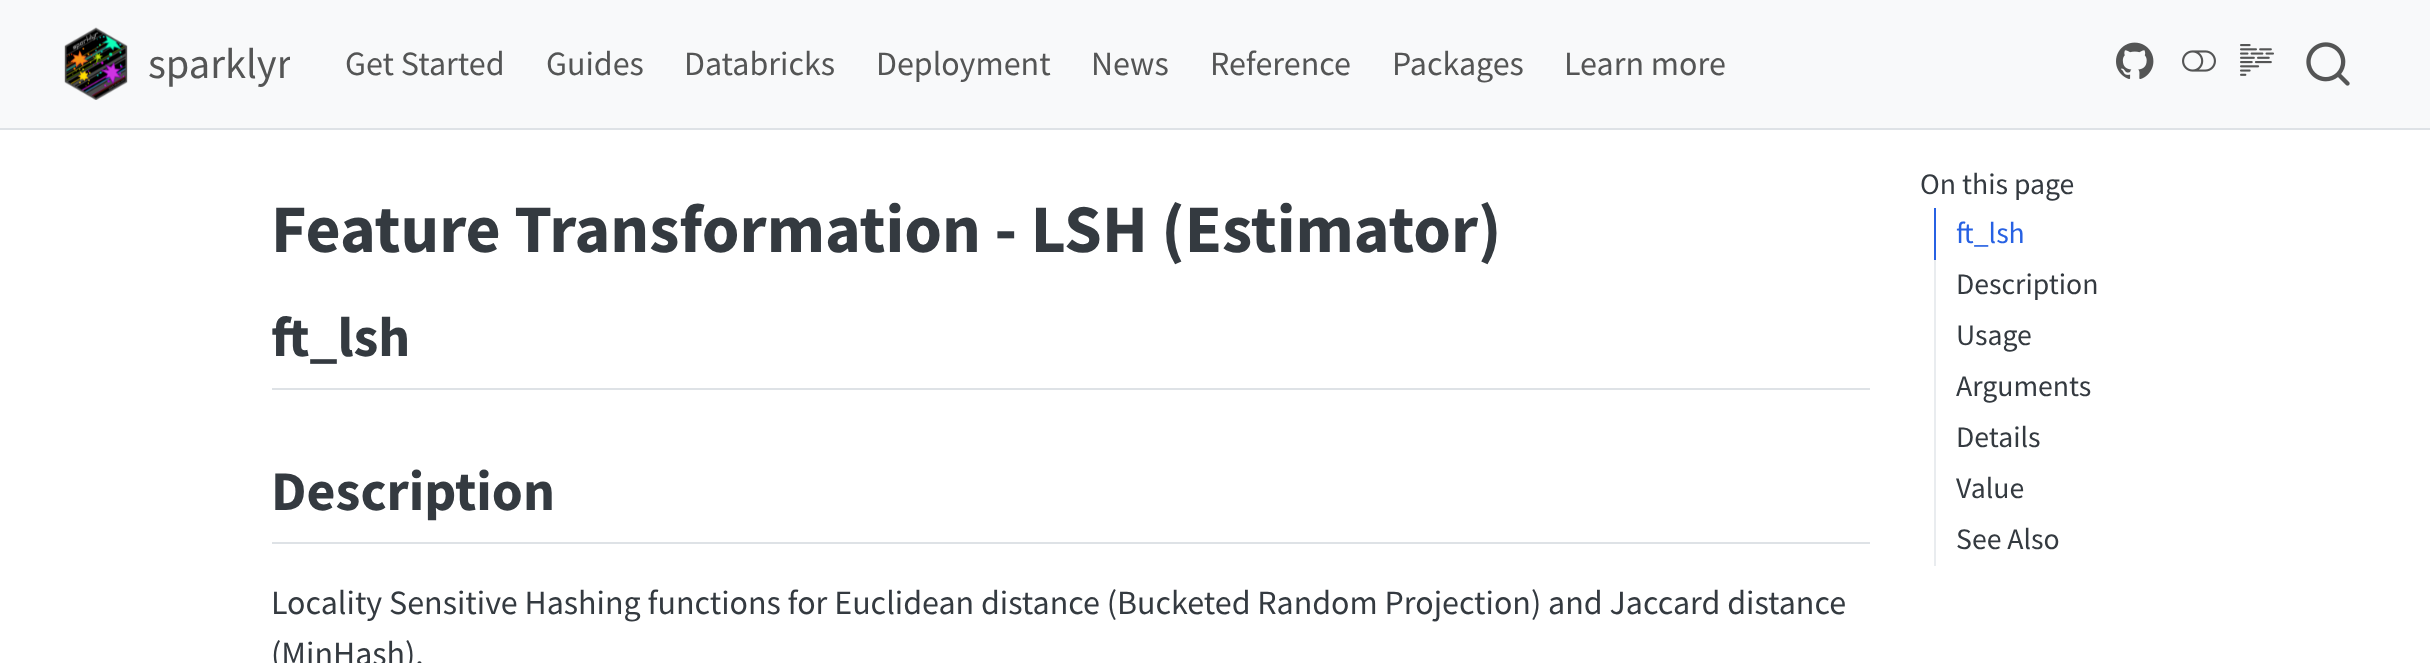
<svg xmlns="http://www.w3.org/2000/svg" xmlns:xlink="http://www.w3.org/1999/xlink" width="2430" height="663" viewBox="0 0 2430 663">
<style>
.cls-1{font:42.5px Source Sans Pro;fill:#545555}
.cls-2{font:34px Source Sans Pro;fill:#545555}
.cls-3{font:bold 68px Source Sans Pro;fill:#343a40}
.cls-4{font:bold 56px Source Sans Pro;fill:#343a40}
.cls-5{font:34px Source Sans Pro;fill:#343a40}
.cls-6{font:29.75px Source Sans Pro;fill:#343a40}
.cls-7{font:29.75px Source Sans Pro;fill:#2761e3}
</style>
<defs>
<clipPath id="clip1"><rect x="148" y="22" width="142" height="84"/></clipPath>
</defs>
<rect width="100%" height="100%" fill="#ffffff"/>
<rect fill="#dee2e6" x="0" y="128" width="2430" height="2"/>
<rect fill="#f8f9fa" x="0" y="0" width="2430" height="128"/>
<image xlink:href="image0.png" x="64" y="27" width="64" height="73"/>
<image xlink:href="image1.png" x="2116" y="42" width="38" height="37"/>
<image xlink:href="image2.png" x="2182" y="50" width="34" height="22"/>
<image xlink:href="image3.png" x="2240" y="44" width="34" height="32"/>
<image xlink:href="image4.png" x="2306" y="42" width="44" height="44"/>
<rect fill="#dee2e6" x="272" y="388" width="1598" height="2"/>
<rect fill="#dee2e6" x="272" y="542" width="1598" height="2"/>
<rect fill="#2761e3" x="1934" y="208" width="2" height="52"/>
<rect fill="#e9ecef" x="1934" y="260" width="2" height="306"/>
<g clip-path="url(#clip1)">
<text class="cls-1" x="148" y="78">sparklyr</text>
</g>
<text class="cls-2" x="345" y="75">Get Started</text>
<text class="cls-2" x="546" y="75">Guides</text>
<text class="cls-2" x="684" y="75">Databricks</text>
<text class="cls-2" x="876" y="75">Deployment</text>
<text class="cls-2" x="1091" y="75">News</text>
<text class="cls-2" x="1210" y="75">Reference</text>
<text class="cls-2" x="1392" y="75">Packages</text>
<text class="cls-2" x="1564" y="75">Learn more</text>
<text class="cls-3" x="271" y="252">Feature Transformation - LSH (Estimator)</text>
<text class="cls-4" x="271" y="356">ft_lsh</text>
<text class="cls-4" x="271" y="510">Description</text>
<text class="cls-5"><tspan x="271" y="614">Locality Sensitive Hashing functions for Euclidean distance (Bucketed Random Projection) and Jaccard distance</tspan><tspan x="271" y="665">(MinHash).</tspan></text>
<text class="cls-6" x="1920" y="194">On this page</text>
<text class="cls-7" x="1956" y="243">ft_lsh</text>
<text class="cls-6"><tspan x="1956" y="294">Description</tspan><tspan x="1956" y="345">Usage</tspan><tspan x="1956" y="396">Arguments</tspan><tspan x="1956" y="447">Details</tspan><tspan x="1956" y="498">Value</tspan><tspan x="1956" y="549">See Also</tspan></text>
</svg>
